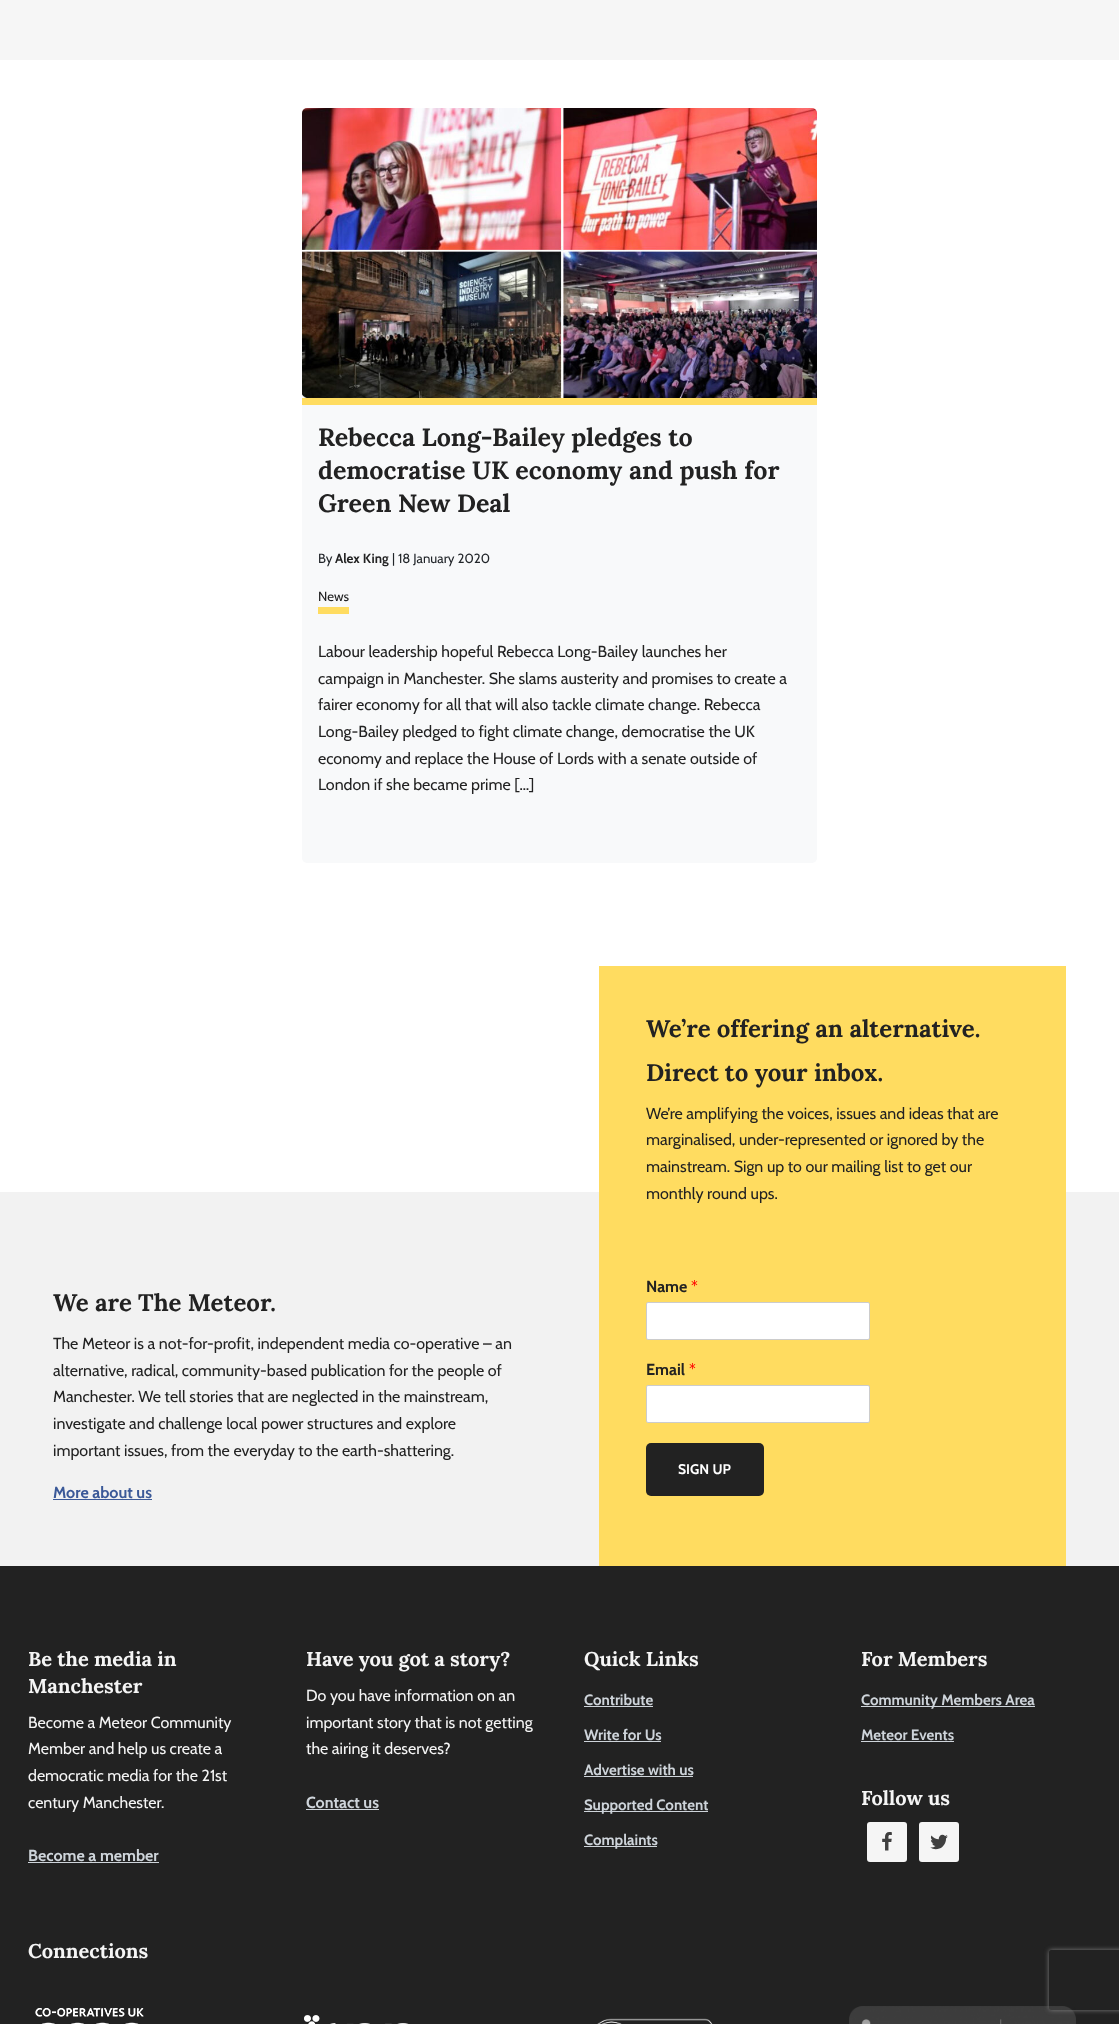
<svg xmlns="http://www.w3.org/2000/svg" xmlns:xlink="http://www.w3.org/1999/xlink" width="1119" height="2024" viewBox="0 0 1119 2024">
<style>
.cls-1{font:bold 25px Lora;fill:#222222}
.cls-2{font:13.25px Cabin;fill:#212529}
.cls-3{font:bold 13.25px Cabin;fill:#222222}
.cls-4{font:13.25px Cabin;fill:#222222}
.cls-5{font:16px Cabin;fill:#222222}
.cls-6{font:bold 24px Lora;fill:#222222}
.cls-7{font:bold 16px Cabin;fill:#3b5998}
.cls-8{font:bold 16px Cabin;fill:#222222}
.cls-9{font:16px Cabin;fill:#ff0000}
.cls-10{font:bold 14px Cabin;fill:#ffffff}
.cls-11{font:bold 20px Lora;fill:#f5f5f5}
.cls-12{font:16px Cabin;fill:#f5f5f5}
.cls-13{font:bold 16px Cabin;fill:#ced4da}
.cls-14{font:bold 15px Cabin;fill:#ced4da}
</style>
<defs>
<clipPath id="clip1"><path d="M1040 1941H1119V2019H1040ZM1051 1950H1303C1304 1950 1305 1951 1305 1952V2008C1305 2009 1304 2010 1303 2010H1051C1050 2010 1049 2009 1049 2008V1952C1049 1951 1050 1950 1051 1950Z" clip-rule="evenodd"/></clipPath>
</defs>
<rect width="100%" height="100%" fill="#ffffff"/>
<rect fill="#f6f6f6" x="0" y="0" width="1119" height="60"/>
<rect fill="#f8f9fa" x="302" y="108" width="515" height="755" rx="5"/>
<rect fill="#ffdc60" x="302" y="398" width="515" height="7"/>
<image xlink:href="image0.png" x="302" y="108" width="515" height="290"/>
<rect fill="#ffdc60" x="318" y="607" width="31" height="7"/>
<rect fill="#222222" x="0" y="1566" width="1119" height="458"/>
<rect fill="#f2f2f2" x="0" y="1192" width="1119" height="374"/>
<rect fill="#3b5998" x="53" y="1499" width="99" height="1"/>
<rect fill="#ffdc60" x="599" y="966" width="467" height="600"/>
<rect fill="#ffffff" stroke="#cccccc" x="646.5" y="1302.5" width="223" height="37" rx="1.5"/>
<rect fill="#ffffff" stroke="#cccccc" x="646.5" y="1385.5" width="223" height="37" rx="1.5"/>
<rect fill="#222222" x="646" y="1443" width="118" height="53" rx="5"/>
<rect fill="#ced4da" x="28" y="1862" width="131" height="1"/>
<rect fill="#ced4da" x="306" y="1809" width="73" height="1"/>
<rect fill="#ced4da" x="584" y="1706" width="69" height="1"/>
<rect fill="#ced4da" x="584" y="1741" width="77" height="1"/>
<rect fill="#ced4da" x="584" y="1776" width="109" height="1"/>
<rect fill="#ced4da" x="584" y="1811" width="124" height="1"/>
<rect fill="#ced4da" x="584" y="1846" width="73" height="1"/>
<rect fill="#ced4da" x="861" y="1706" width="174" height="1"/>
<rect fill="#ced4da" x="861" y="1741" width="93" height="1"/>
<rect fill="#f5f5f5" x="867" y="1822" width="40" height="40" rx="3"/>
<image xlink:href="image1.png" x="882" y="1832" width="10" height="19"/>
<rect fill="#f5f5f5" x="919" y="1822" width="40" height="40" rx="3"/>
<image xlink:href="image2.png" x="930" y="1834" width="18" height="16"/>
<image xlink:href="image3.png" x="35" y="2008" width="109" height="16"/>
<image xlink:href="image4.png" x="304" y="2015" width="105" height="9"/>
<image xlink:href="image5.png" x="597" y="2018" width="116" height="6"/>
<image xlink:href="image6.png" x="849" y="2006" width="227" height="18"/>
<g clip-path="url(#clip1)">
<rect fill="#808080" filter="blur(2.5px)" x="1049" y="1950" width="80" height="60" rx="2"/>
</g>
<text class="cls-1"><tspan x="318" y="446">Rebecca Long-Bailey pledges to</tspan><tspan x="318" y="479">democratise UK economy and push for</tspan><tspan x="318" y="512">Green New Deal</tspan></text>
<text class="cls-2" x="318" y="563">By</text>
<text class="cls-3" x="335" y="563">Alex King</text>
<text class="cls-2" x="392" y="563">| 18 January 2020</text>
<text class="cls-4" x="318" y="601">News</text>
<text class="cls-5"><tspan x="318" y="657">Labour leadership hopeful Rebecca Long-Bailey launches her</tspan><tspan x="318" y="684">campaign in Manchester. She slams austerity and promises to create a</tspan><tspan x="318" y="710">fairer economy for all that will also tackle climate change. Rebecca</tspan><tspan x="318" y="737">Long-Bailey pledged to fight climate change, democratise the UK</tspan><tspan x="318" y="764">economy and replace the House of Lords with a senate outside of</tspan><tspan x="318" y="790">London if she became prime […]</tspan></text>
<text class="cls-6" x="53" y="1311">We are The Meteor.</text>
<text class="cls-5"><tspan x="53" y="1349">The Meteor is a not-for-profit, independent media co-operative – an</tspan><tspan x="53" y="1376">alternative, radical, community-based publication for the people of</tspan><tspan x="53" y="1402">Manchester. We tell stories that are neglected in the mainstream,</tspan><tspan x="53" y="1429">investigate and challenge local power structures and explore</tspan><tspan x="53" y="1456">important issues, from the everyday to the earth-shattering.</tspan></text>
<text class="cls-7" x="53" y="1498">More about us</text>
<text class="cls-6"><tspan x="646" y="1037">We’re offering an alternative.</tspan><tspan x="646" y="1081">Direct to your inbox.</tspan></text>
<text class="cls-5"><tspan x="646" y="1119">We’re amplifying the voices, issues and ideas that are</tspan><tspan x="646" y="1145">marginalised, under-represented or ignored by the</tspan><tspan x="646" y="1172">mainstream. Sign up to our mailing list to get our</tspan><tspan x="646" y="1199">monthly round ups.</tspan></text>
<text class="cls-8" x="646" y="1292">Name</text>
<text class="cls-9" x="691" y="1292">*</text>
<text class="cls-8" x="646" y="1375">Email</text>
<text class="cls-9" x="689" y="1375">*</text>
<text class="cls-10" x="678" y="1474">SIGN UP</text>
<text class="cls-11"><tspan x="28" y="1666">Be the media in</tspan><tspan x="28" y="1693">Manchester</tspan></text>
<text class="cls-12"><tspan x="28" y="1728">Become a Meteor Community</tspan><tspan x="28" y="1754">Member and help us create a</tspan><tspan x="28" y="1781">democratic media for the 21st</tspan><tspan x="28" y="1808">century Manchester.</tspan></text>
<text class="cls-13" x="28" y="1861">Become a member</text>
<text class="cls-11" x="306" y="1666">Have you got a story?</text>
<text class="cls-12"><tspan x="306" y="1701">Do you have information on an</tspan><tspan x="306" y="1728">important story that is not getting</tspan><tspan x="306" y="1754">the airing it deserves?</tspan></text>
<text class="cls-13" x="306" y="1808">Contact us</text>
<text class="cls-11" x="584" y="1666">Quick Links</text>
<text class="cls-14" x="584" y="1705">Contribute</text>
<text class="cls-14" x="584" y="1740">Write for Us</text>
<text class="cls-14" x="584" y="1775">Advertise with us</text>
<text class="cls-14" x="584" y="1810">Supported Content</text>
<text class="cls-14" x="584" y="1845">Complaints</text>
<text class="cls-11" x="861" y="1666">For Members</text>
<text class="cls-14" x="861" y="1705">Community Members Area</text>
<text class="cls-14" x="861" y="1740">Meteor Events</text>
<text class="cls-11" x="861" y="1805">Follow us</text>
<text class="cls-11" x="28" y="1958">Connections</text>
</svg>
